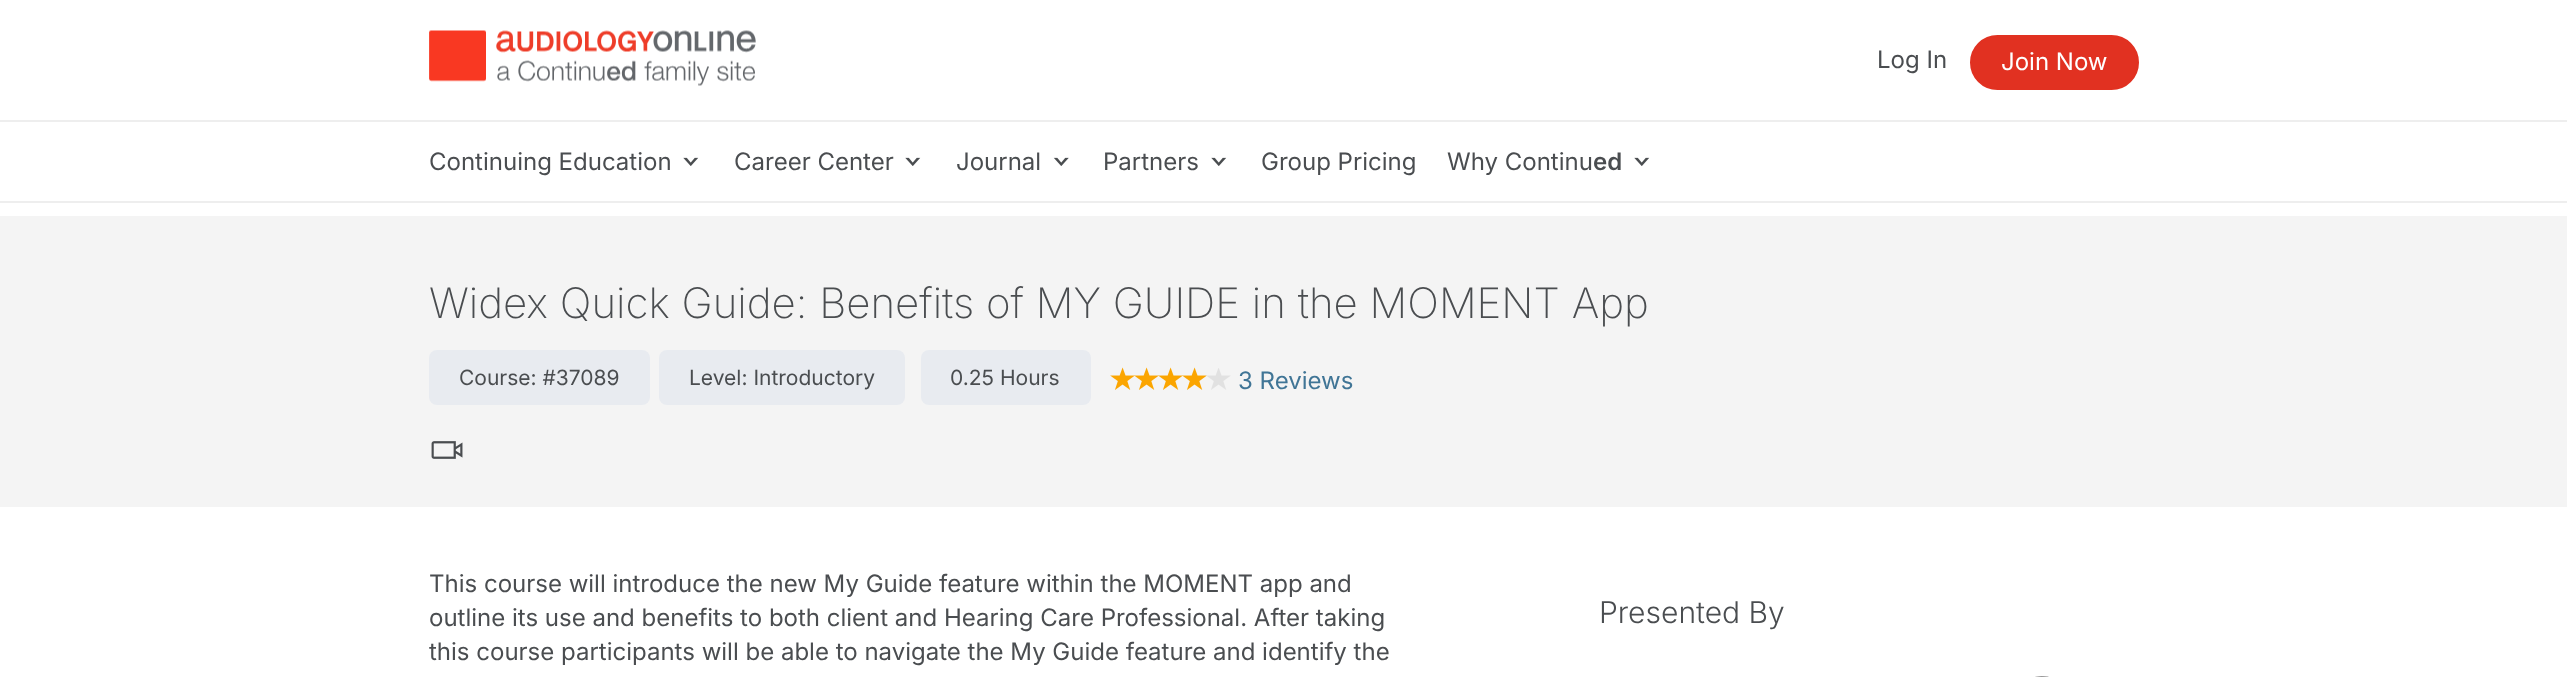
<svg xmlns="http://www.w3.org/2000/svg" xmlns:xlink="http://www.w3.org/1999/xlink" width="2567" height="677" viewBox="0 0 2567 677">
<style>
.cls-1{font:24px Inter;fill:#4a4d50}
.cls-2{font:24px Inter;fill:#ffffff}
.cls-3{font:600 24px Inter;fill:#4a4d50}
.cls-4{font:200 42px Inter;fill:#4a4d50}
.cls-5{font:21px Inter;fill:#4a4d50}
.cls-6{font:24px Inter;fill:#407596}
.cls-7{font:300 30px Inter;fill:#4a4d50}
</style>
<rect width="100%" height="100%" fill="#ffffff"/>
<image xlink:href="image0.png" x="429" y="30" width="327" height="56"/>
<rect fill="#e13121" stroke="#e13121" stroke-width="2" x="1971" y="36" width="167" height="53" rx="26.5"/>
<rect fill="#eeeeee" x="0" y="120" width="2567" height="2"/>
<image xlink:href="image1.png" x="683" y="157" width="16" height="9"/>
<image xlink:href="image1.png" x="905" y="157" width="16" height="9"/>
<image xlink:href="image2.png" x="1053" y="157" width="16" height="9"/>
<image xlink:href="image1.png" x="1211" y="157" width="16" height="9"/>
<image xlink:href="image1.png" x="1634" y="157" width="16" height="9"/>
<rect fill="#eeeeee" x="0" y="201" width="2567" height="2"/>
<rect fill="#f4f4f4" x="0" y="216" width="2567" height="291"/>
<rect fill="#e8ebf0" x="429" y="350" width="221" height="55" rx="8"/>
<rect fill="#e8ebf0" x="659" y="350" width="246" height="55" rx="8"/>
<rect fill="#e8ebf0" x="921" y="350" width="170" height="55" rx="8"/>
<image xlink:href="image3.png" x="1110" y="367" width="25" height="23"/>
<image xlink:href="image4.png" x="1134" y="367" width="25" height="23"/>
<image xlink:href="image4.png" x="1158" y="367" width="25" height="23"/>
<image xlink:href="image4.png" x="1182" y="367" width="25" height="23"/>
<image xlink:href="image5.png" x="1206" y="368" width="25" height="22"/>
<image xlink:href="image6.png" x="431" y="441" width="32" height="18"/>
<image xlink:href="image7.png" x="2035" y="676" width="14" height="1"/>
<text class="cls-1" x="1877" y="68">Log In</text>
<text class="cls-2" x="2001" y="70">Join Now</text>
<text class="cls-1" x="429" y="170">Continuing Education</text>
<text class="cls-1" x="734" y="170">Career Center</text>
<text class="cls-1" x="956" y="170">Journal</text>
<text class="cls-1" x="1103" y="170">Partners</text>
<text class="cls-1" x="1261" y="170">Group Pricing</text>
<text class="cls-1" x="1447" y="170">Why Continu</text>
<text class="cls-3" x="1593" y="170">ed</text>
<text class="cls-4" x="429" y="318">Widex Quick Guide: Benefits of MY GUIDE in the MOMENT App</text>
<text class="cls-5" x="459" y="385">Course: #37089</text>
<text class="cls-5" x="689" y="385">Level: Introductory</text>
<text class="cls-5" x="950" y="385">0.25 Hours</text>
<text class="cls-6" x="1238" y="389">3 Reviews</text>
<text class="cls-1"><tspan x="429" y="592">This course will introduce the new My Guide feature within the MOMENT app and</tspan><tspan x="429" y="626">outline its use and benefits to both client and Hearing Care Professional. After taking</tspan><tspan x="429" y="660">this course participants will be able to navigate the My Guide feature and identify the</tspan></text>
<text class="cls-7" x="1599" y="623">Presented By</text>
</svg>
